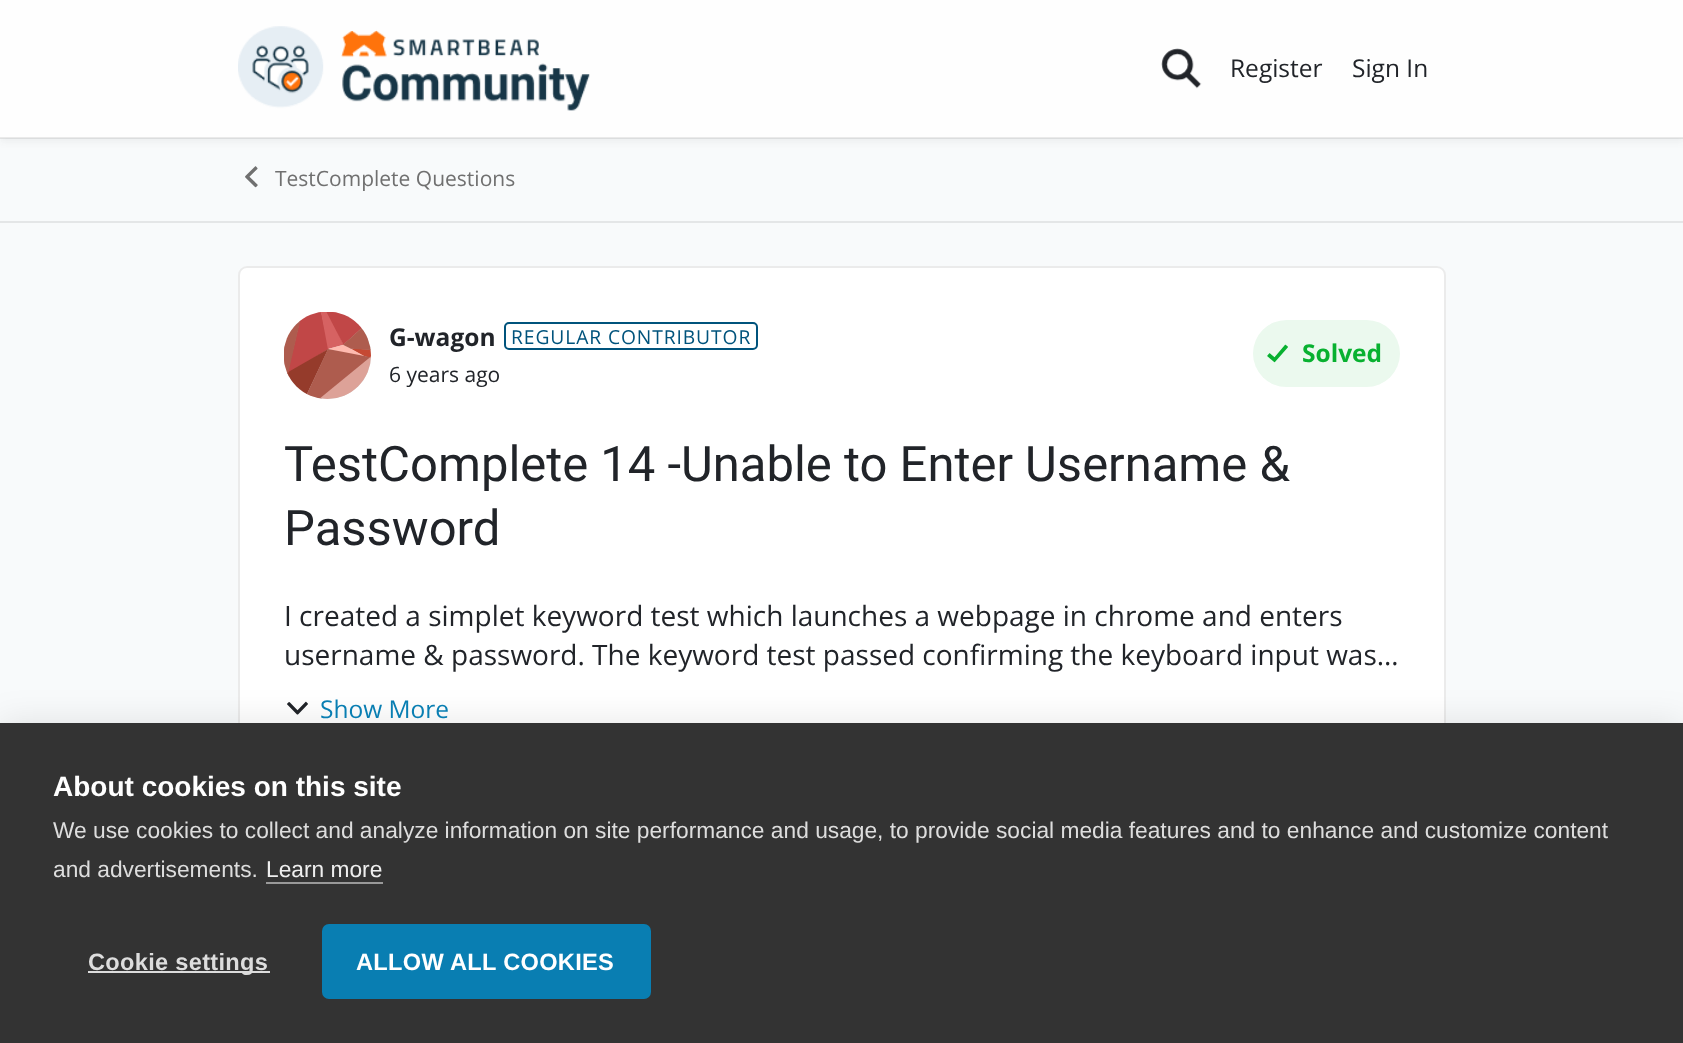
<svg xmlns="http://www.w3.org/2000/svg" xmlns:xlink="http://www.w3.org/1999/xlink" width="1683" height="1043" viewBox="0 0 1683 1043">
<style>
.cls-1{font:24.5px Open Sans;fill:#212429}
.cls-2{font:21px Open Sans;fill:#707070}
.cls-3{font:bold 24.5px Open Sans;fill:#212429}
.cls-4{font:19.25px Open Sans;letter-spacing:0.9px;fill:#00537c}
.cls-5{font:21px Open Sans;fill:#212429}
.cls-6{font:bold 24.5px Open Sans;fill:#08b130}
.cls-7{font:49px Roboto;fill:#212429}
.cls-8{font:28px Open Sans;fill:#212429}
.cls-9{font:24.5px Open Sans;fill:#097eb2}
.cls-10{font:bold 28px Liberation Sans;fill:#ffffff}
.cls-11{font:22.75px Liberation Sans;fill:#dddddd}
.cls-12{font:22.75px Liberation Sans;fill:#eeeeee}
.cls-13{font:bold 23.6px Liberation Sans;letter-spacing:0.3px;fill:#dddddd}
.cls-14{font:bold 23.6px Liberation Sans;letter-spacing:0.3px;fill:#ffffff}
</style>
<rect width="100%" height="100%" fill="#f8fafb"/>
<rect fill="#333333" fill-opacity="0.06" filter="blur(3.5px)" x="0" y="4" width="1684" height="138"/>
<rect fill="#fefefe" x="0" y="0" width="1683" height="138"/>
<rect fill="#000000" fill-opacity="0.08" x="0" y="137" width="1683" height="2"/>
<image xlink:href="image0.png" x="238" y="26" width="352" height="85"/>
<image xlink:href="image1.png" x="1161" y="48" width="41" height="41"/>
<rect fill="#e4e6e7" x="0" y="221" width="1683" height="2"/>
<image xlink:href="image2.png" x="245" y="166" width="13" height="22"/>
<rect fill="#ffffff" x="238" y="266" width="1208" height="641" rx="9"/>
<rect fill="none" stroke="#000000" stroke-opacity="0.08" stroke-width="2" x="239" y="267" width="1206" height="639" rx="8"/>
<circle fill="#d9d9d9" cx="327.5" cy="355.5" r="43.5"/>
<image xlink:href="image3.png" x="284" y="312" width="87" height="87"/>
<rect fill="none" stroke="#00537c" stroke-width="2" x="505" y="323" width="252" height="26" rx="4"/>
<rect fill="#ebf9ee" x="1253" y="320" width="147" height="67" rx="33.5"/>
<image xlink:href="image4.png" x="1267" y="344" width="21" height="19"/>
<image xlink:href="image5.png" x="287" y="701" width="21" height="14"/>
<rect fill="#000000" fill-opacity="0.1" filter="blur(17.5px)" x="0" y="723" width="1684" height="320"/>
<rect fill="#333333" x="0" y="723" width="1683" height="320"/>
<rect fill="#999999" x="266" y="882" width="117" height="2"/>
<rect fill="#dddddd" x="88" y="971" width="182" height="2"/>
<rect fill="#097eb2" x="322" y="924" width="329" height="75" rx="7"/>
<text class="cls-1" x="1230" y="77">Register</text>
<text class="cls-1" x="1352" y="77">Sign In</text>
<text class="cls-2" x="275" y="186">TestComplete Questions</text>
<text class="cls-3" x="389" y="346">G-wagon</text>
<text class="cls-4" x="511" y="344">REGULAR CONTRIBUTOR</text>
<text class="cls-5" x="389" y="382">6 years ago</text>
<text class="cls-6" x="1302" y="362">Solved</text>
<text class="cls-7"><tspan x="284" y="481">TestComplete 14 -Unable to Enter Username &amp;</tspan><tspan x="284" y="545">Password</tspan></text>
<text class="cls-8"><tspan x="284" y="626">I created a simplet keyword test which launches a webpage in chrome and enters</tspan><tspan x="284" y="665">username &amp; password. The keyword test passed confirming the keyboard input was…</tspan></text>
<text class="cls-9" x="320" y="718">Show More</text>
<text class="cls-10" x="53" y="796">About cookies on this site</text>
<text class="cls-11"><tspan x="53" y="838">We use cookies to collect and analyze information on site performance and usage, to provide social media features and to enhance and customize content</tspan><tspan x="53" y="877">and advertisements.</tspan></text>
<text class="cls-12" x="266" y="877">Learn more</text>
<text class="cls-13" x="88" y="970">Cookie settings</text>
<text class="cls-14" x="356" y="970">ALLOW ALL COOKIES</text>
</svg>
